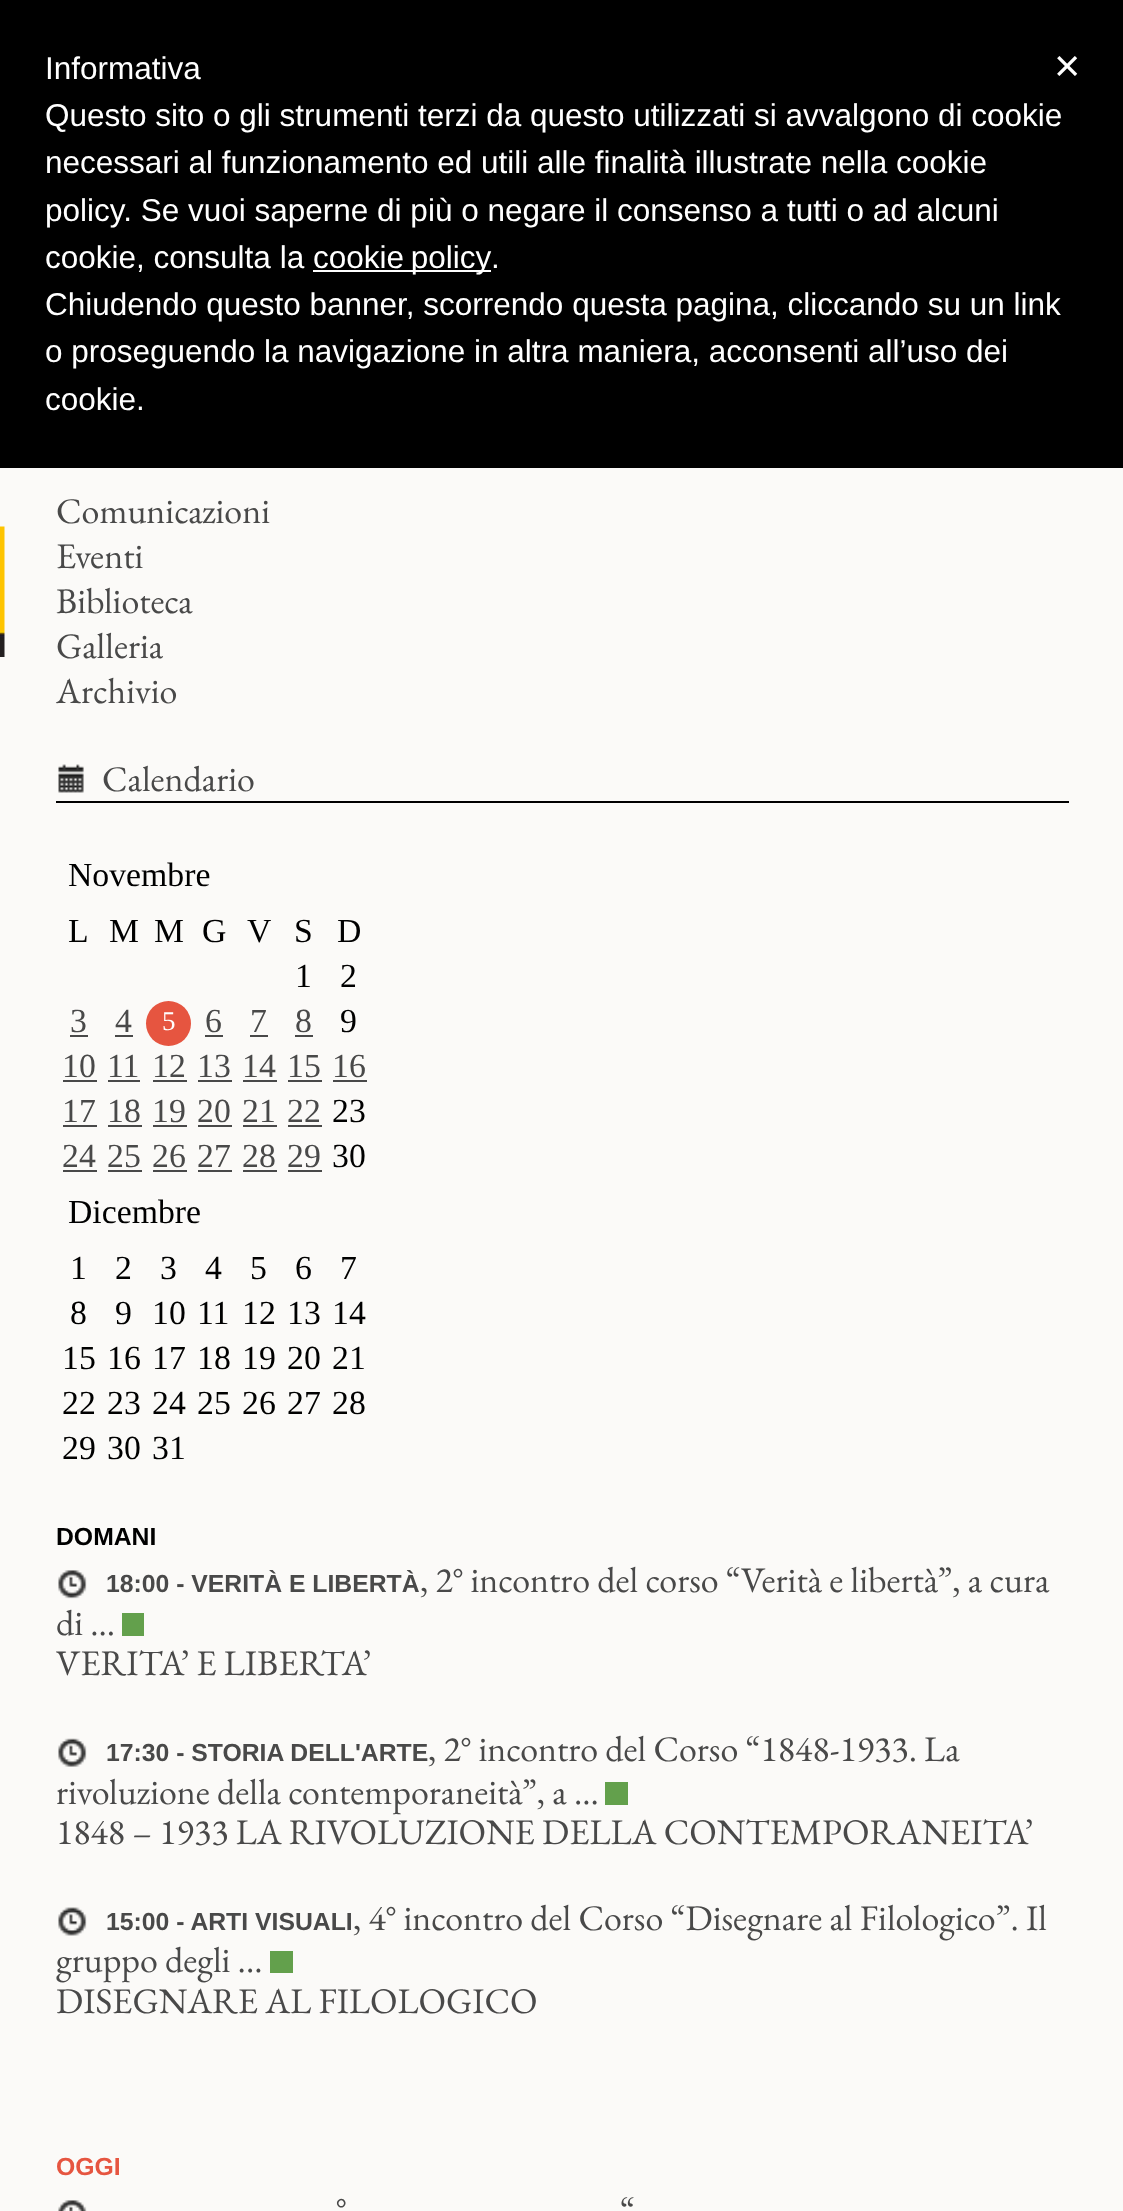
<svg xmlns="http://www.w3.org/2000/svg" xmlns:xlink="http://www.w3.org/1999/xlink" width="1123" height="2211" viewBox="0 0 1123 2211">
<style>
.cls-1{font:31.5px Liberation Sans;fill:#ffffff}
.cls-2{font:45px Liberation Sans;fill:#ffffff}
.cls-3{font:36px EB Garamond;fill:#494949}
.cls-4{font:33.75px Liberation Serif;fill:#000000}
.cls-5{font:33.75px Liberation Serif;fill:#494949}
.cls-6{font:27px Liberation Serif;fill:#ffffff}
.cls-7{font:bold 24.75px Liberation Sans;fill:#000000}
.cls-8{font:bold 24.75px Liberation Sans;fill:#494949}
.cls-9{font:bold 24.75px Liberation Sans;fill:#e65540}
</style>
<rect width="100%" height="100%" fill="#fbfaf8"/>
<rect fill="#000000" x="0" y="0" width="1123" height="468"/>
<rect fill="#ffffff" x="313" y="270" width="178" height="2"/>
<image xlink:href="image0.png" x="0" y="526" width="5" height="131"/>
<image xlink:href="image1.png" x="58" y="764" width="26" height="29"/>
<rect fill="#000000" x="56" y="801" width="1013" height="2"/>
<rect fill="#494949" x="70" y="1035" width="18" height="2"/>
<rect fill="#494949" x="115" y="1035" width="18" height="2"/>
<circle fill="#e65540" cx="168.5" cy="1023.5" r="22.5"/>
<rect fill="#494949" x="205" y="1035" width="18" height="2"/>
<rect fill="#494949" x="250" y="1035" width="18" height="2"/>
<rect fill="#494949" x="295" y="1035" width="18" height="2"/>
<rect fill="#494949" x="63" y="1080" width="34" height="2"/>
<rect fill="#494949" x="108" y="1080" width="32" height="2"/>
<rect fill="#494949" x="153" y="1080" width="34" height="2"/>
<rect fill="#494949" x="198" y="1080" width="34" height="2"/>
<rect fill="#494949" x="243" y="1080" width="34" height="2"/>
<rect fill="#494949" x="288" y="1080" width="34" height="2"/>
<rect fill="#494949" x="333" y="1080" width="34" height="2"/>
<rect fill="#494949" x="63" y="1125" width="34" height="2"/>
<rect fill="#494949" x="108" y="1125" width="34" height="2"/>
<rect fill="#494949" x="153" y="1125" width="34" height="2"/>
<rect fill="#494949" x="198" y="1125" width="34" height="2"/>
<rect fill="#494949" x="243" y="1125" width="34" height="2"/>
<rect fill="#494949" x="288" y="1125" width="34" height="2"/>
<rect fill="#494949" x="63" y="1170" width="34" height="2"/>
<rect fill="#494949" x="108" y="1170" width="34" height="2"/>
<rect fill="#494949" x="153" y="1170" width="34" height="2"/>
<rect fill="#494949" x="198" y="1170" width="34" height="2"/>
<rect fill="#494949" x="243" y="1170" width="34" height="2"/>
<rect fill="#494949" x="288" y="1170" width="34" height="2"/>
<image xlink:href="image2.png" x="58" y="1570" width="29" height="29"/>
<rect fill="#63a04c" x="122" y="1613" width="22" height="23"/>
<image xlink:href="image3.png" x="58" y="1738" width="29" height="29"/>
<rect fill="#63a04c" x="605" y="1782" width="23" height="23"/>
<image xlink:href="image4.png" x="58" y="1907" width="29" height="29"/>
<rect fill="#63a04c" x="270" y="1951" width="23" height="22"/>
<image xlink:href="image5.png" x="58" y="2200" width="29" height="11"/>
<text class="cls-1"><tspan x="45" y="79">Informativa</tspan><tspan x="45" y="126">Questo sito o gli strumenti terzi da questo utilizzati si avvalgono di cookie</tspan><tspan x="45" y="173">necessari al funzionamento ed utili alle finalità illustrate nella cookie</tspan><tspan x="45" y="221">policy. Se vuoi saperne di più o negare il consenso a tutti o ad alcuni</tspan><tspan x="45" y="268">cookie, consulta la</tspan></text>
<text class="cls-1" x="313" y="268" word-spacing="-2">cookie policy</text>
<text class="cls-1" x="491" y="268">.</text>
<text class="cls-1"><tspan x="45" y="315">Chiudendo questo banner, scorrendo questa pagina, cliccando su un link</tspan><tspan x="45" y="362">o proseguendo la navigazione in altra maniera, acconsenti all’uso dei</tspan><tspan x="45" y="410">cookie.</tspan></text>
<text class="cls-2" x="1054" y="81">×</text>
<text class="cls-3"><tspan x="56" y="523">Comunicazioni</tspan><tspan x="56" y="568">Eventi</tspan><tspan x="56" y="613">Biblioteca</tspan><tspan x="56" y="658">Galleria</tspan><tspan x="56" y="703">Archivio</tspan></text>
<text class="cls-3" x="102" y="791">Calendario</text>
<text class="cls-4"><tspan x="68" y="886">Novembre</tspan><tspan x="68" y="942">L</tspan></text>
<text class="cls-4" x="109" y="942">M</text>
<text class="cls-4" x="154" y="942">M</text>
<text class="cls-4" x="202" y="942">G</text>
<text class="cls-4" x="247" y="942">V</text>
<text class="cls-4" x="294" y="942">S</text>
<text class="cls-4" x="337" y="942">D</text>
<text class="cls-4" x="295" y="987">1</text>
<text class="cls-4" x="340" y="987">2</text>
<text class="cls-5" x="70" y="1032">3</text>
<text class="cls-5" x="115" y="1032">4</text>
<text class="cls-6" x="162" y="1030">5</text>
<text class="cls-5" x="205" y="1032">6</text>
<text class="cls-5" x="250" y="1032">7</text>
<text class="cls-5" x="295" y="1032">8</text>
<text class="cls-4" x="340" y="1032">9</text>
<text class="cls-5" x="62" y="1077">10</text>
<text class="cls-5" x="107" y="1077">11</text>
<text class="cls-5" x="152" y="1077">12</text>
<text class="cls-5" x="197" y="1077">13</text>
<text class="cls-5" x="242" y="1077">14</text>
<text class="cls-5" x="287" y="1077">15</text>
<text class="cls-5" x="332" y="1077">16</text>
<text class="cls-5" x="62" y="1122">17</text>
<text class="cls-5" x="107" y="1122">18</text>
<text class="cls-5" x="152" y="1122">19</text>
<text class="cls-5" x="197" y="1122">20</text>
<text class="cls-5" x="242" y="1122">21</text>
<text class="cls-5" x="287" y="1122">22</text>
<text class="cls-4" x="332" y="1122">23</text>
<text class="cls-5" x="62" y="1167">24</text>
<text class="cls-5" x="107" y="1167">25</text>
<text class="cls-5" x="152" y="1167">26</text>
<text class="cls-5" x="197" y="1167">27</text>
<text class="cls-5" x="242" y="1167">28</text>
<text class="cls-5" x="287" y="1167">29</text>
<text class="cls-4" x="332" y="1167">30</text>
<text class="cls-4" x="68" y="1223">Dicembre</text>
<text class="cls-4" x="70" y="1279">1</text>
<text class="cls-4" x="115" y="1279">2</text>
<text class="cls-4" x="160" y="1279">3</text>
<text class="cls-4" x="205" y="1279">4</text>
<text class="cls-4" x="250" y="1279">5</text>
<text class="cls-4" x="295" y="1279">6</text>
<text class="cls-4" x="340" y="1279">7</text>
<text class="cls-4" x="70" y="1324">8</text>
<text class="cls-4" x="115" y="1324">9</text>
<text class="cls-4" x="152" y="1324">10</text>
<text class="cls-4" x="197" y="1324">11</text>
<text class="cls-4" x="242" y="1324">12</text>
<text class="cls-4" x="287" y="1324">13</text>
<text class="cls-4" x="332" y="1324">14</text>
<text class="cls-4" x="62" y="1369">15</text>
<text class="cls-4" x="107" y="1369">16</text>
<text class="cls-4" x="152" y="1369">17</text>
<text class="cls-4" x="197" y="1369">18</text>
<text class="cls-4" x="242" y="1369">19</text>
<text class="cls-4" x="287" y="1369">20</text>
<text class="cls-4" x="332" y="1369">21</text>
<text class="cls-4" x="62" y="1414">22</text>
<text class="cls-4" x="107" y="1414">23</text>
<text class="cls-4" x="152" y="1414">24</text>
<text class="cls-4" x="197" y="1414">25</text>
<text class="cls-4" x="242" y="1414">26</text>
<text class="cls-4" x="287" y="1414">27</text>
<text class="cls-4" x="332" y="1414">28</text>
<text class="cls-4" x="62" y="1459">29</text>
<text class="cls-4" x="107" y="1459">30</text>
<text class="cls-4" x="152" y="1459">31</text>
<text class="cls-7" x="56" y="1545">DOMANI</text>
<text class="cls-8" x="106" y="1592">18:00 - VERITÀ E LIBERTÀ</text>
<text class="cls-3" x="420" y="1592">, 2° incontro del corso “Verità e libertà”, a cura</text>
<text class="cls-3"><tspan x="56" y="1635">di ...</tspan><tspan x="56" y="1675">VERITA’ E LIBERTA’</tspan></text>
<text class="cls-8" x="106" y="1761">17:30 - STORIA DELL'ARTE</text>
<text class="cls-3" x="428" y="1761">, 2° incontro del Corso “1848-1933. La</text>
<text class="cls-3"><tspan x="56" y="1804">rivoluzione della contemporaneità”, a ...</tspan><tspan x="56" y="1844">1848 – 1933 LA RIVOLUZIONE DELLA CONTEMPORANEITA’</tspan></text>
<text class="cls-8" x="106" y="1930">15:00 - ARTI VISUALI</text>
<text class="cls-3" x="353" y="1930">, 4° incontro del Corso “Disegnare al Filologico”. Il</text>
<text class="cls-3"><tspan x="56" y="1972">gruppo degli ...</tspan><tspan x="56" y="2013">DISEGNARE AL FILOLOGICO</tspan></text>
<text class="cls-9" x="56" y="2175">OGGI</text>
<text class="cls-3" x="336" y="2222">°</text>
<text class="cls-3" x="620" y="2222">“</text>
</svg>
